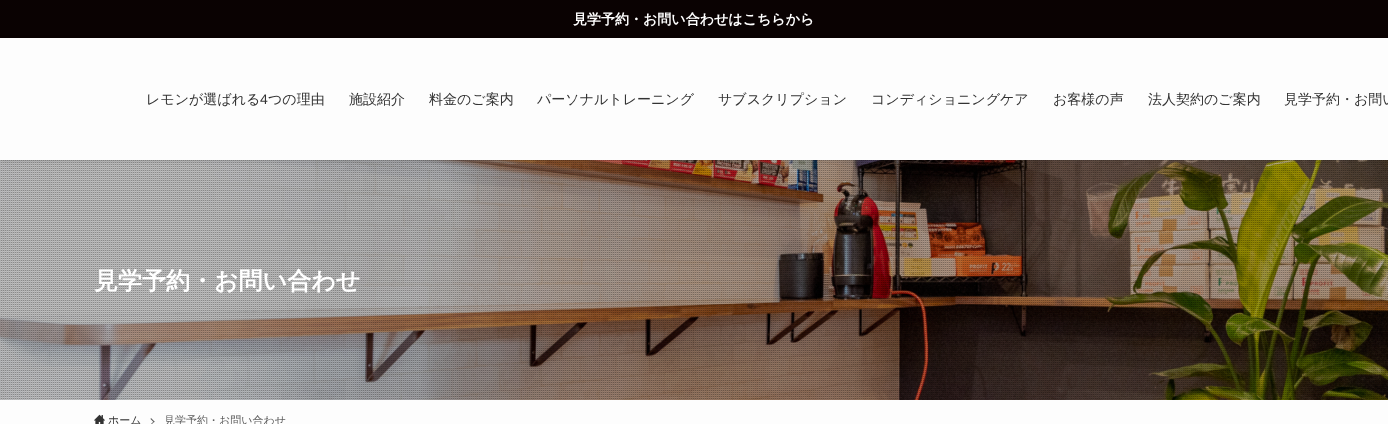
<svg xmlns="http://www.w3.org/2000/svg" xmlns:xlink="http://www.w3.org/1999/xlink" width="1388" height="424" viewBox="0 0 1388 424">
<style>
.cls-1{font:bold 14px WenQuanYi Zen Hei;fill:#ffffff}
.cls-2{font:500 14px WenQuanYi Zen Hei;fill:#333333}
.cls-3{font:14px Liberation Sans;fill:#333333}
.cls-4{font:bold 24px WenQuanYi Zen Hei;fill:#ffffff}
.cls-5{font:500 11px WenQuanYi Zen Hei;fill:#333333}
.cls-6{font:500 11px WenQuanYi Zen Hei;fill:#5b5b5b}
</style>
<defs>
<clipPath id="clip1"><path d="M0 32H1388V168H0ZM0 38H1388V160H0Z" clip-rule="evenodd"/></clipPath>
</defs>
<rect width="100%" height="100%" fill="#fdfdfd"/>
<rect fill="#0a0202" x="0" y="0" width="1388" height="38"/>
<image xlink:href="image0.png" x="0" y="160" width="1388" height="240"/>
<image xlink:href="image1.png" x="0" y="160" width="1388" height="240"/>
<g clip-path="url(#clip1)">
<rect fill="#000000" fill-opacity="0.12" filter="blur(2px)" x="0" y="39" width="1388" height="122"/>
</g>
<image xlink:href="image2.png" x="94" y="414" width="11" height="10"/>
<path fill="#5b5b5b" d="M151 418L154.5 421.5L154 422.5L150.5 419Z"/>
<path fill="#5b5b5b" d="M154 421L154.5 421.5L151 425L150.5 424.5Z"/>
<text class="cls-1" x="573" y="24">見学予約・お問い合わせはこちらから</text>
<text class="cls-2" x="146" y="104">レモンが選ばれる</text>
<text class="cls-3" x="260" y="104">4</text>
<text class="cls-2" x="268" y="104">つの理由</text>
<text class="cls-2" x="349" y="104">施設紹介</text>
<text class="cls-2" x="429" y="104">料金のご案内</text>
<text class="cls-2" x="537" y="104">パーソナルトレーニング</text>
<text class="cls-2" x="718" y="104">サブスクリプション</text>
<text class="cls-2" x="871" y="104">コンディショニングケア</text>
<text class="cls-2" x="1053" y="104">お客様の声</text>
<text class="cls-2" x="1148" y="104">法人契約のご案内</text>
<text class="cls-2" x="1284" y="104">見学予約・お問い</text>
<text class="cls-4" x="94" y="289">見学予約・お問い合わせ</text>
<text class="cls-5" x="108" y="424">ホーム</text>
<text class="cls-6" x="164" y="424">見学予約・お問い合わせ</text>
</svg>
